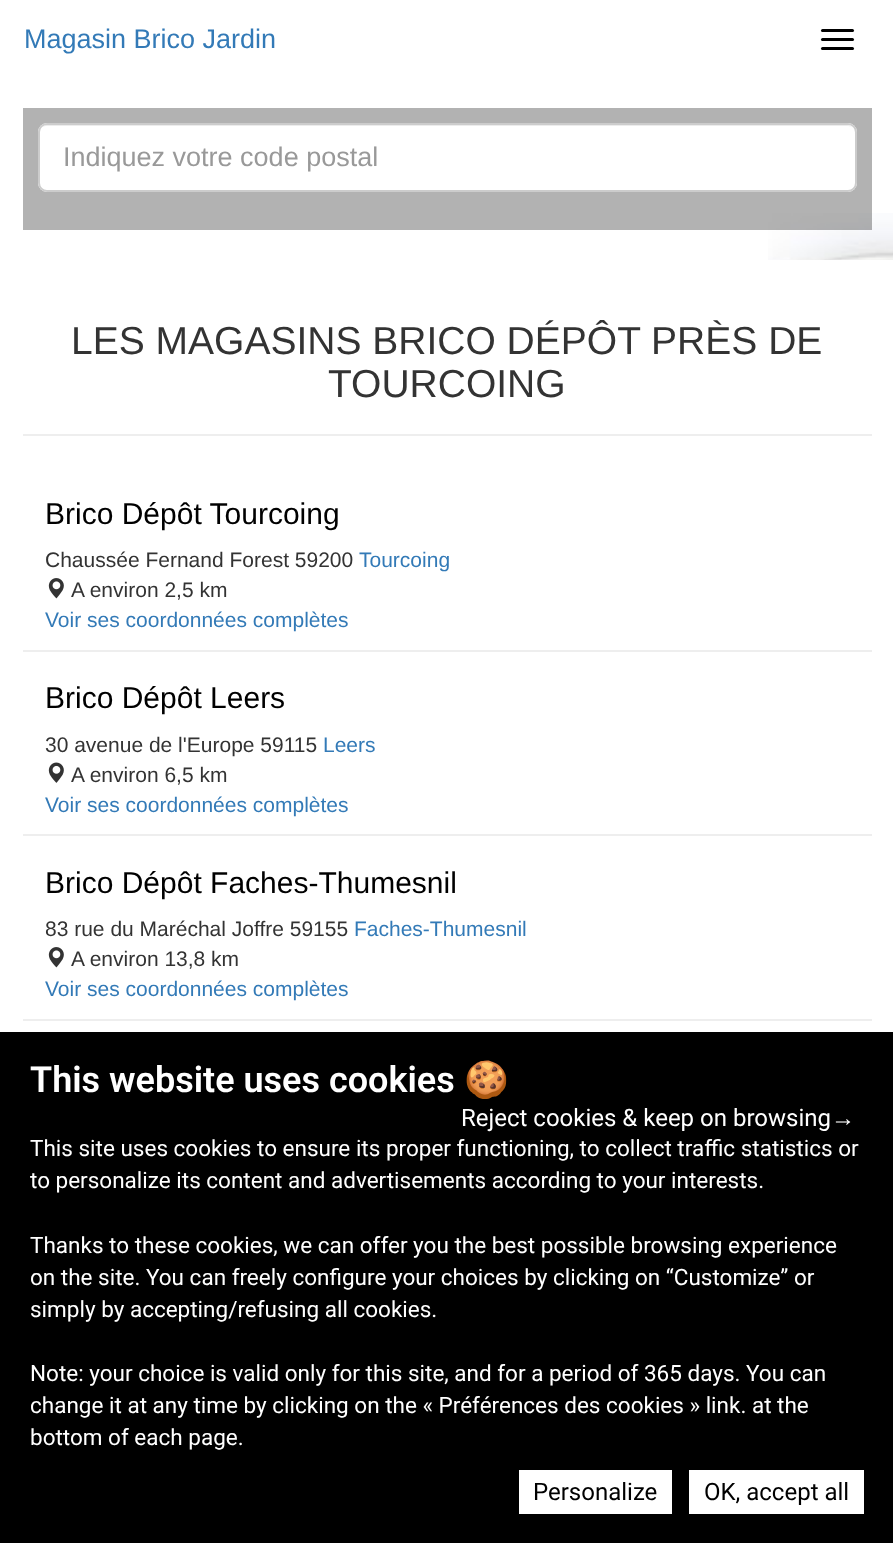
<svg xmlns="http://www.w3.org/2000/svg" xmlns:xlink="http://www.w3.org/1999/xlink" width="893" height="1543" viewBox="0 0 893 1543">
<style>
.cls-1{font:27px Liberation Sans;fill:#337ab7}
.cls-2{font:27px Liberation Sans;fill:#999999}
.cls-3{font:39px Liberation Sans;fill:#333333}
.cls-4{font:30px Liberation Sans;fill:#000000}
.cls-5{font:21px Liberation Sans;fill:#333333}
.cls-6{font:21px Liberation Sans;fill:#337ab7}
.cls-7{font:600 36px Roboto;fill:#ffffff}
.cls-8{font:36px Noto Color Emoji;fill:#ffffff}
.cls-9{font:24px Roboto;fill:#ffffff}
.cls-10{font:24px Liberation Sans;fill:#ffffff}
.cls-11{font:22.5px Roboto;fill:#ffffff}
.cls-12{font:24px Roboto;fill:#000000}
</style>
<rect width="100%" height="100%" fill="#ffffff"/>
<rect fill="#000000" x="821" y="29" width="33" height="3" rx="1.5"/>
<rect fill="#000000" x="821" y="38" width="33" height="3" rx="1.5"/>
<rect fill="#000000" x="821" y="47" width="33" height="3" rx="1.5"/>
<image xlink:href="image0.png" x="768" y="213" width="125" height="47"/>
<rect fill="#000000" fill-opacity="0.3" x="23" y="108" width="849" height="122"/>
<rect fill="#ffffff" x="38" y="123" width="819" height="69" rx="9"/>
<path fill="#ececec" d="M46 126H848C852 126 855 129 855 134V133C855 129 851 125 847 125H47C43 125 39 129 39 133V134C39 129 42 126 46 126Z"/>
<rect fill="none" stroke="#cccccc" stroke-width="2" x="39" y="124" width="817" height="67" rx="8"/>
<rect fill="#eeeeee" x="23" y="434" width="849" height="2"/>
<rect fill="#eeeeee" x="23" y="650" width="849" height="2"/>
<image xlink:href="image1.png" x="48" y="578" width="16" height="21"/>
<rect fill="#eeeeee" x="23" y="834" width="849" height="2"/>
<image xlink:href="image2.png" x="48" y="762" width="16" height="21"/>
<rect fill="#eeeeee" x="23" y="1019" width="849" height="2"/>
<image xlink:href="image1.png" x="48" y="947" width="16" height="21"/>
<rect fill="#000000" x="0" y="1032" width="893" height="511"/>
<rect fill="#ffffff" x="519" y="1470" width="153" height="44"/>
<rect fill="#ffffff" x="689" y="1470" width="175" height="44"/>
<text class="cls-1" x="24" y="48">Magasin Brico Jardin</text>
<text class="cls-2" x="63" y="166">Indiquez votre code postal</text>
<text class="cls-3" x="71" y="354">LES MAGASINS BRICO DÉPÔT PRÈS DE</text>
<text class="cls-3" x="328" y="397">TOURCOING</text>
<text class="cls-4" x="45" y="524">Brico Dépôt Tourcoing</text>
<text class="cls-5" x="45" y="567">Chaussée Fernand Forest 59200</text>
<text class="cls-6" x="359" y="567">Tourcoing</text>
<text class="cls-5" x="71" y="597">A environ 2,5 km</text>
<text class="cls-6" x="45" y="627">Voir ses coordonnées complètes</text>
<text class="cls-4" x="45" y="708">Brico Dépôt Leers</text>
<text class="cls-5" x="45" y="752">30 avenue de l'Europe 59115</text>
<text class="cls-6" x="323" y="752">Leers</text>
<text class="cls-5" x="71" y="782">A environ 6,5 km</text>
<text class="cls-6" x="45" y="812">Voir ses coordonnées complètes</text>
<text class="cls-4" x="45" y="893">Brico Dépôt Faches-Thumesnil</text>
<text class="cls-5" x="45" y="936">83 rue du Maréchal Joffre 59155</text>
<text class="cls-6" x="354" y="936">Faches-Thumesnil</text>
<text class="cls-5" x="71" y="966">A environ 13,8 km</text>
<text class="cls-6" x="45" y="996">Voir ses coordonnées complètes</text>
<text class="cls-7" x="30" y="1092">This website uses cookies</text>
<text class="cls-8" x="464" y="1092">🍪</text>
<text class="cls-9" x="461" y="1126">Reject cookies &amp; keep on browsing</text>
<text class="cls-10" x="831" y="1126">→</text>
<text class="cls-11"><tspan x="30" y="1156">This site uses cookies to ensure its proper functioning, to collect traffic statistics or</tspan><tspan x="30" y="1188">to personalize its content and advertisements according to your interests.</tspan></text>
<text class="cls-11"><tspan x="30" y="1253">Thanks to these cookies, we can offer you the best possible browsing experience</tspan><tspan x="30" y="1285">on the site. You can freely configure your choices by clicking on “Customize” or</tspan><tspan x="30" y="1317">simply by accepting/refusing all cookies.</tspan></text>
<text class="cls-11"><tspan x="30" y="1381">Note: your choice is valid only for this site, and for a period of 365 days. You can</tspan><tspan x="30" y="1413">change it at any time by clicking on the « Préférences des cookies » link. at the</tspan><tspan x="30" y="1445">bottom of each page.</tspan></text>
<text class="cls-12" x="533" y="1500">Personalize</text>
<text class="cls-12" x="704" y="1500">OK, accept all</text>
</svg>
